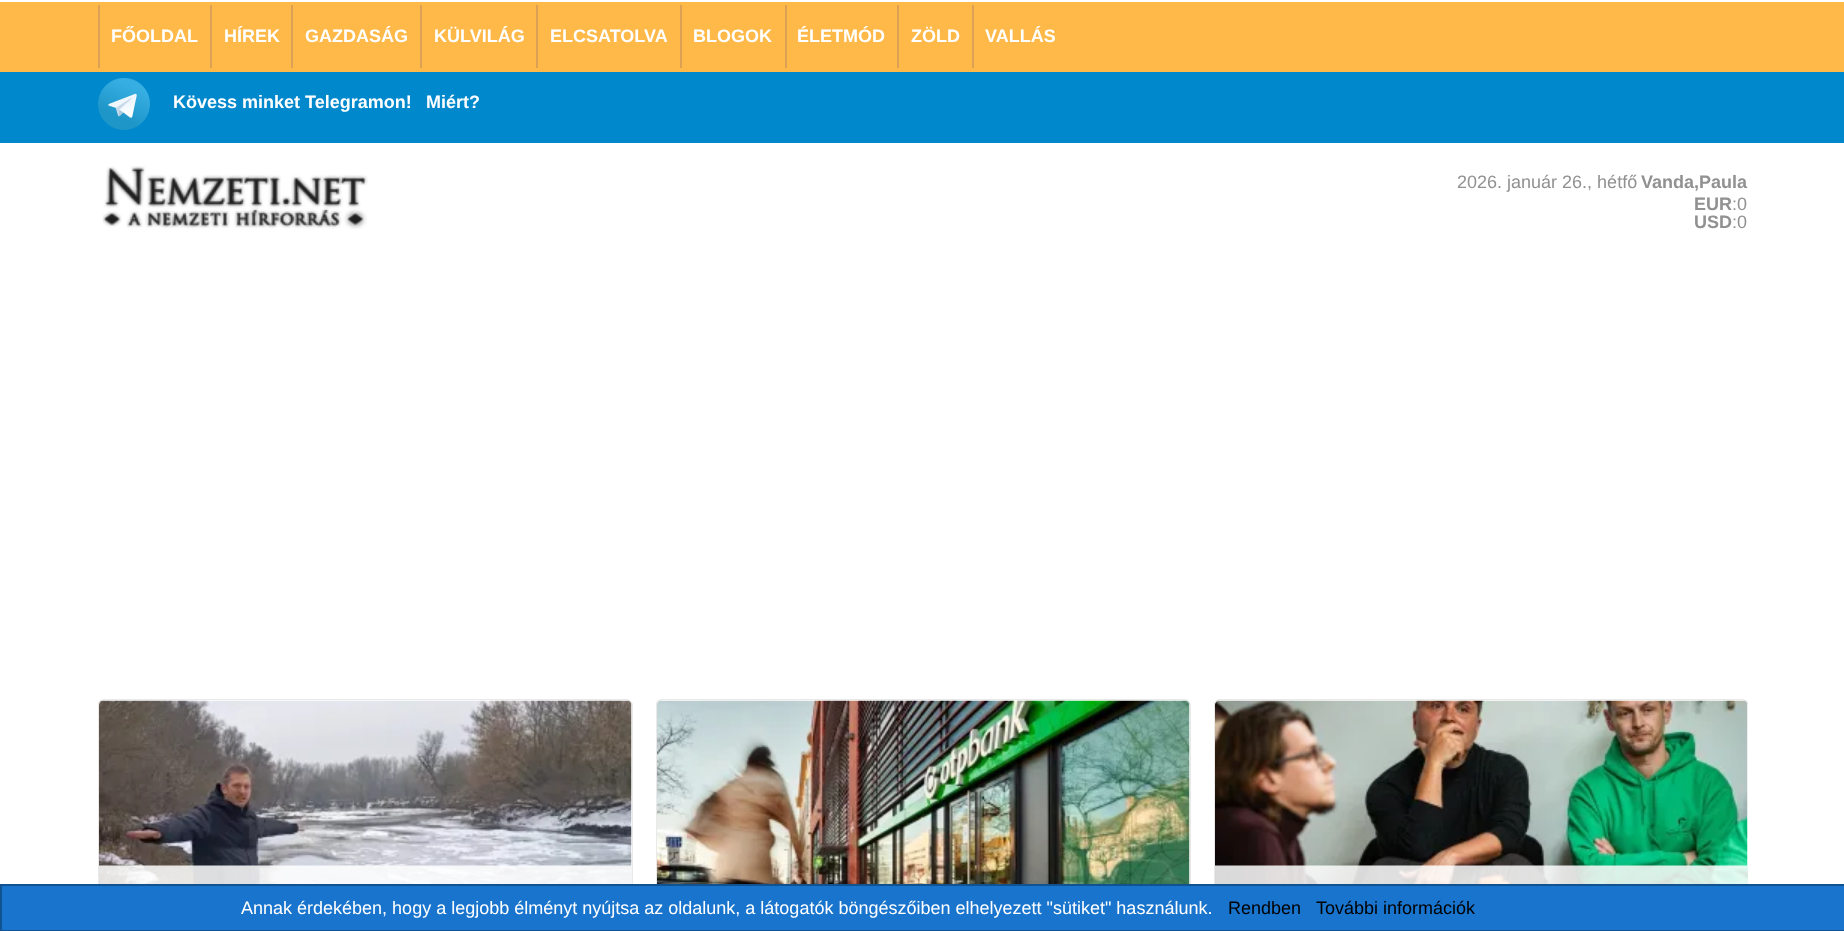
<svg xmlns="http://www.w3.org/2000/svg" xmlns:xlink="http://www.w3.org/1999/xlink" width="1844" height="931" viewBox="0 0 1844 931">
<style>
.cls-1{font:bold 18px Liberation Sans;fill:#ffffff}
.cls-2{font:18px Liberation Sans;fill:#919191}
.cls-3{font:bold 18px Liberation Sans;fill:#919191}
.cls-4{font:18px Liberation Sans;fill:#ffffff}
.cls-5{font:18px Liberation Sans;fill:#000000}
</style>
<defs>
<clipPath id="clip1"><rect x="98" y="677" width="1650" height="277"/></clipPath>
</defs>
<rect width="100%" height="100%" fill="#ffffff"/>
<rect fill="#ffb949" x="0" y="2" width="1844" height="70"/>
<rect fill="#dda155" x="98" y="5" width="2" height="63"/>
<rect fill="#dda155" x="210" y="5" width="2" height="63"/>
<rect fill="#dda155" x="291" y="5" width="2" height="63"/>
<rect fill="#dda155" x="420" y="5" width="2" height="63"/>
<rect fill="#dda155" x="536" y="5" width="2" height="63"/>
<rect fill="#dda155" x="680" y="5" width="2" height="63"/>
<rect fill="#dda155" x="785" y="5" width="2" height="63"/>
<rect fill="#dda155" x="897" y="5" width="2" height="63"/>
<rect fill="#dda155" x="972" y="5" width="2" height="63"/>
<rect fill="#0088cc" x="0" y="72" width="1844" height="71"/>
<image xlink:href="image0.png" x="98" y="78" width="52" height="52"/>
<image xlink:href="image1.png" x="102" y="166" width="266" height="63"/>
<path fill="#e9e9e9" d="M104 699C102 699 100 700 99 701L100 702C101 701 103 700 104 700H627L630 702L631 701C630 700 628 699 627 699Z"/>
<path fill="#e9e9e9" d="M633 922V704L631 701L630 702L632 705V922L631 924L632 926C632 925 633 924 633 922Z"/>
<path fill="#e9e9e9" d="M99 701C98 702 98 704 98 705V922C98 924 98 925 99 926L100 924L99 922V705C99 704 99 703 100 702Z"/>
<image xlink:href="image2.png" x="99" y="700" width="533" height="184"/>
<image xlink:href="image3.png" x="99" y="865" width="533" height="19"/>
<path fill="#e9e9e9" d="M662 699C660 699 658 700 657 701L658 702C659 701 661 700 662 700H1185L1188 702L1189 701C1188 700 1186 699 1185 699Z"/>
<path fill="#e9e9e9" d="M1191 922V704L1189 701L1188 702L1190 705V922L1189 924L1190 926C1190 925 1191 924 1191 922Z"/>
<path fill="#e9e9e9" d="M657 701C656 702 656 704 656 705V922C656 924 656 925 657 926L658 924L657 922V705C657 704 657 703 658 702Z"/>
<image xlink:href="image4.png" x="657" y="700" width="533" height="184"/>
<path fill="#e9e9e9" d="M1220 699C1218 699 1216 700 1215 701L1216 702C1217 701 1219 700 1220 700H1743L1746 702L1747 701C1746 700 1744 699 1743 699Z"/>
<g clip-path="url(#clip1)">
<path fill="#e9e9e9" d="M1749 922V704L1747 701L1746 702L1748 705V922L1747 924L1748 926C1748 925 1749 924 1749 922Z"/>
</g>
<path fill="#e9e9e9" d="M1215 701C1214 702 1214 704 1214 705V922C1214 924 1214 925 1215 926L1216 924L1215 922V705C1215 704 1215 703 1216 702Z"/>
<image xlink:href="image5.png" x="1215" y="700" width="533" height="184"/>
<image xlink:href="image6.png" x="1215" y="865" width="533" height="19"/>
<rect fill="#1874cd" stroke="#115290" stroke-width="2" x="1" y="885" width="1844" height="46"/>
<text class="cls-1" x="111" y="42">FŐOLDAL</text>
<text class="cls-1" x="224" y="42">HÍREK</text>
<text class="cls-1" x="305" y="42">GAZDASÁG</text>
<text class="cls-1" x="434" y="42">KÜLVILÁG</text>
<text class="cls-1" x="550" y="42">ELCSATOLVA</text>
<text class="cls-1" x="693" y="42">BLOGOK</text>
<text class="cls-1" x="797" y="42">ÉLETMÓD</text>
<text class="cls-1" x="911" y="42">ZÖLD</text>
<text class="cls-1" x="985" y="42">VALLÁS</text>
<text class="cls-1" x="173" y="108">Kövess minket Telegramon!</text>
<text class="cls-1" x="426" y="108">Miért?</text>
<text class="cls-2" x="1457" y="188">2026. január 26., hétfő</text>
<text class="cls-3" x="1641" y="188">Vanda,Paula</text>
<text class="cls-3" x="1694" y="210">EUR</text>
<text class="cls-2" x="1732" y="210">:0</text>
<text class="cls-3" x="1694" y="228">USD</text>
<text class="cls-2" x="1732" y="228">:0</text>
<text class="cls-4" x="241" y="914">Annak érdekében, hogy a legjobb élményt nyújtsa az oldalunk, a látogatók böngészőiben elhelyezett "sütiket" használunk.</text>
<text class="cls-5" x="1228" y="914">Rendben</text>
<text class="cls-5" x="1316" y="914">További információk</text>
</svg>
